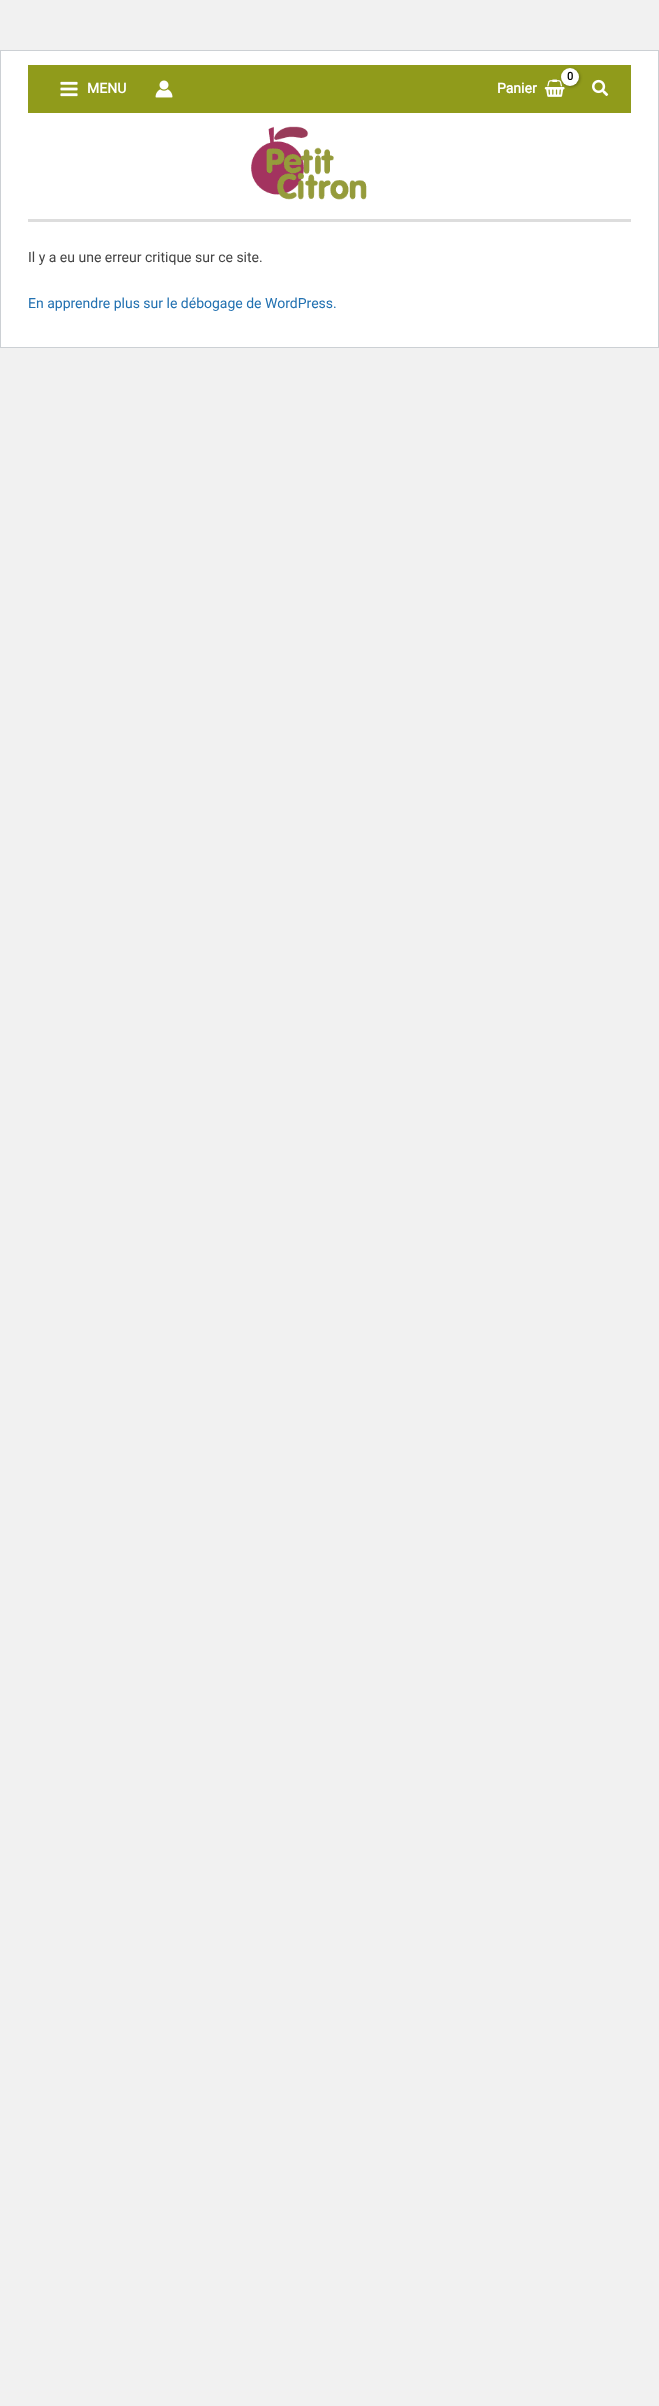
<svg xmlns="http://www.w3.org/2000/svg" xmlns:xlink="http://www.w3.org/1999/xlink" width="659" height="2406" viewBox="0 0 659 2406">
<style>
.cls-1{font:bold 14px Roboto;fill:#ffffff}
.cls-2{font:bold 11px Roboto;fill:#000000}
.cls-3{font:14px Roboto;fill:#444444}
.cls-4{font:14px Roboto;fill:#2271b1}
</style>
<rect width="100%" height="100%" fill="#f1f1f1"/>
<rect fill="#ffffff" stroke="#ccd0d4" x="0.5" y="50.5" width="658" height="297"/>
<rect fill="#909b1b" x="28" y="65" width="603" height="48"/>
<image xlink:href="image0.png" x="60" y="81" width="18" height="16"/>
<image xlink:href="image1.png" x="155" y="80" width="18" height="18"/>
<image xlink:href="image2.png" x="544" y="79" width="21" height="18"/>
<rect fill="#000000" fill-opacity="0.3" filter="blur(1.5px)" x="562" y="69" width="18" height="18" rx="9"/>
<circle fill="#ffffff" cx="570" cy="77" r="9"/>
<image xlink:href="image3.png" x="592" y="79" width="17" height="17"/>
<rect fill="#dddddd" x="28" y="219" width="603" height="3"/>
<image xlink:href="image4.png" x="251" y="126" width="116" height="74"/>
<text class="cls-1" x="87" y="93">MENU</text>
<text class="cls-2" x="567" y="80">0</text>
<text class="cls-1" x="497" y="93">Panier</text>
<text class="cls-3" x="28" y="262">Il y a eu une erreur critique sur ce site.</text>
<text class="cls-4" x="28" y="308">En apprendre plus sur le débogage de WordPress.</text>
</svg>
